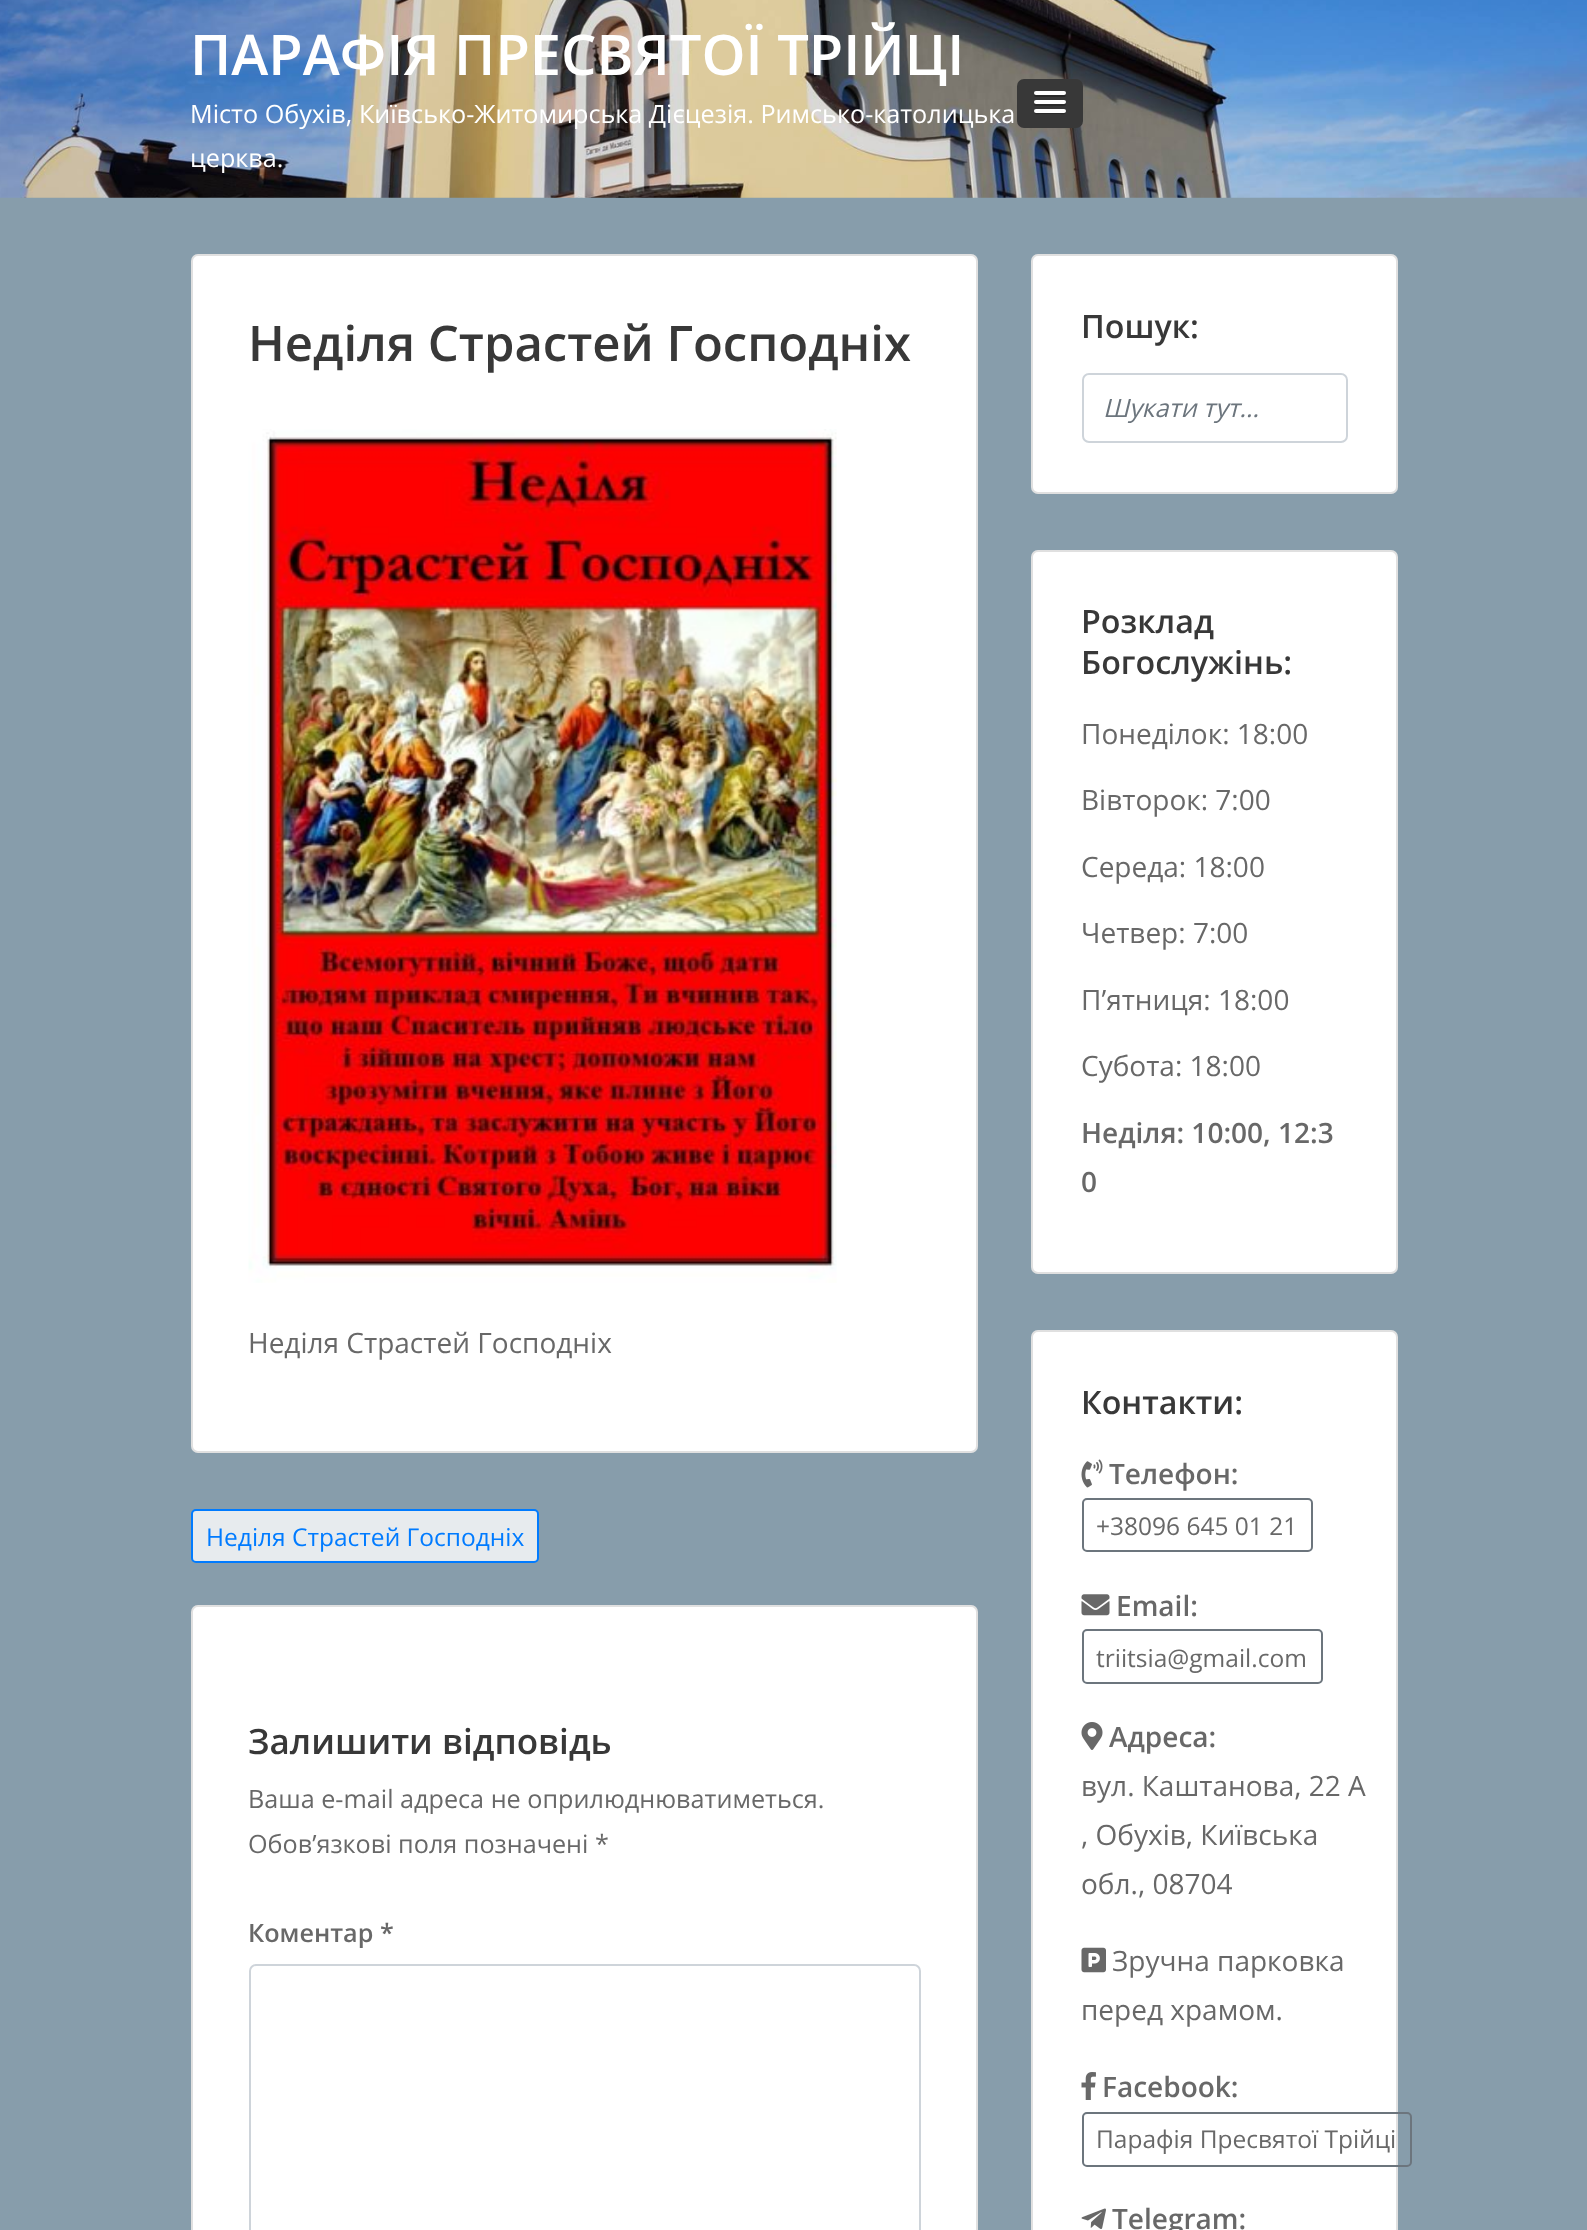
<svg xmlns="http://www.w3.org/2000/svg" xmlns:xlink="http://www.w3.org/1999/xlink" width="1587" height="2230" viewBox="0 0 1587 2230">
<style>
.cls-1{font:600 56px Open Sans;fill:#ffffff}
.cls-2{font:25.2px Open Sans;fill:#ffffff}
.cls-3{font:600 49px Open Sans;fill:#383838}
.cls-4{font:28px Open Sans;fill:#686868}
.cls-5{font:24.5px Open Sans;fill:#007bff}
.cls-6{font:600 35px Open Sans;fill:#383838}
.cls-7{font:25.2px Open Sans;fill:#686868}
.cls-8{font:600 25.2px Open Sans;fill:#686868}
.cls-9{font:600 32.25px Open Sans;fill:#383838}
.cls-10{font:italic 25.2px Open Sans;fill:#6c757d}
.cls-11{font:600 28px Open Sans;fill:#686868}
.cls-12{font:24.5px Open Sans;fill:#686868}
</style>
<rect width="100%" height="100%" fill="#879dab"/>
<image xlink:href="image0.png" x="0" y="0" width="1587" height="198"/>
<rect fill="#383838" x="1017" y="79" width="66" height="49" rx="7"/>
<path fill="#2a2a2a" d="M1034.5 93.5C1033.5 95 1034 96.5 1035.5 97H1064.5C1066 96.5 1066.5 95 1065.5 93.5L1064 94.5H1036Z"/>
<rect fill="#ffffff" x="1034" y="91" width="32" height="4" rx="2"/>
<path fill="#2a2a2a" d="M1034.5 102.5C1033.5 104 1034 106 1036 106C1039.5 106 1064 106.5 1065 105.5C1066 105 1066.5 103.5 1065.5 102.5L1064 103H1036Z"/>
<rect fill="#ffffff" x="1034" y="100" width="32" height="4" rx="2"/>
<path fill="#2a2a2a" d="M1034.5 111L1034 112.5C1034.5 115 1039.5 114 1040.5 114H1059.5C1060.5 114 1065.5 115 1066 112.5L1065.5 111C1065.5 111.5 1065 112 1064 112H1036C1035 112 1034.5 111.5 1034.5 111Z"/>
<rect fill="#ffffff" x="1034" y="109" width="32" height="4" rx="2"/>
<rect fill="#ffffff" x="191" y="254" width="787" height="1199" rx="7"/>
<rect fill="none" stroke="#000000" stroke-opacity="0.12" stroke-width="2" x="192" y="255" width="785" height="1197" rx="6"/>
<image xlink:href="image1.png" x="248" y="429" width="589" height="854"/>
<rect fill="#e7ebee" stroke="#007bff" stroke-width="2" x="192" y="1510" width="346" height="52" rx="4"/>
<rect fill="#ffffff" x="191" y="1605" width="787" height="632" rx="7"/>
<rect fill="none" stroke="#000000" stroke-opacity="0.12" stroke-width="2" x="192" y="1606" width="785" height="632" rx="6"/>
<rect fill="none" stroke="#ced4da" stroke-width="2" x="250" y="1965" width="670" height="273" rx="6"/>
<rect fill="#ffffff" x="1031" y="254" width="367" height="240" rx="7"/>
<rect fill="none" stroke="#000000" stroke-opacity="0.12" stroke-width="2" x="1032" y="255" width="365" height="238" rx="6"/>
<rect fill="none" stroke="#ced4da" stroke-width="2" x="1083" y="374" width="264" height="68" rx="6"/>
<rect fill="#ffffff" x="1031" y="550" width="367" height="724" rx="7"/>
<rect fill="none" stroke="#000000" stroke-opacity="0.12" stroke-width="2" x="1032" y="551" width="365" height="722" rx="6"/>
<rect fill="#ffffff" x="1031" y="1330" width="367" height="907" rx="7"/>
<rect fill="none" stroke="#000000" stroke-opacity="0.12" stroke-width="2" x="1032" y="1331" width="365" height="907" rx="6"/>
<image xlink:href="image2.png" x="1081" y="1459" width="22" height="29"/>
<rect fill="none" stroke="#6c757d" stroke-width="2" x="1083" y="1499" width="229" height="52" rx="4"/>
<image xlink:href="image3.png" x="1081" y="1594" width="29" height="22"/>
<rect fill="none" stroke="#6c757d" stroke-width="2" x="1083" y="1630" width="239" height="53" rx="4"/>
<image xlink:href="image4.png" x="1081" y="1722" width="22" height="28"/>
<image xlink:href="image5.png" x="1081" y="1947" width="25" height="26"/>
<image xlink:href="image6.png" x="1081" y="2072" width="15" height="28"/>
<rect fill="none" stroke="#6c757d" stroke-width="2" x="1083" y="2113" width="328" height="53" rx="4"/>
<image xlink:href="image7.png" x="1081" y="2208" width="25" height="21"/>
<text class="cls-1" x="190" y="75">ПАРАФІЯ ПРЕСВЯТОЇ ТРІЙЦІ</text>
<text class="cls-2"><tspan x="190" y="123">Місто Обухів, Київсько-Житомирська Дієцезія. Римсько-католицька</tspan><tspan x="190" y="167">церква.</tspan></text>
<text class="cls-3" x="248" y="361">Неділя Страстей Господніх</text>
<text class="cls-4" x="248" y="1353">Неділя Страстей Господніх</text>
<text class="cls-5" x="206" y="1546">Неділя Страстей Господніх</text>
<text class="cls-6" x="248" y="1754">Залишити відповідь</text>
<text class="cls-7"><tspan x="248" y="1808">Ваша e-mail адреса не оприлюднюватиметься.</tspan><tspan x="248" y="1853">Обов’язкові поля позначені *</tspan></text>
<text class="cls-8" x="248" y="1942">Коментар *</text>
<text class="cls-9" x="1081" y="338">Пошук:</text>
<text class="cls-10" x="1103" y="417">Шукати тут…</text>
<text class="cls-9"><tspan x="1081" y="633">Розклад</tspan><tspan x="1081" y="674">Богослужінь:</tspan></text>
<text class="cls-4" x="1081" y="744">Понеділок: 18:00</text>
<text class="cls-4" x="1081" y="810">Вівторок: 7:00</text>
<text class="cls-4" x="1081" y="877">Середа: 18:00</text>
<text class="cls-4" x="1081" y="943">Четвер: 7:00</text>
<text class="cls-4" x="1081" y="1010">П’ятниця: 18:00</text>
<text class="cls-4" x="1081" y="1076">Субота: 18:00</text>
<text class="cls-11"><tspan x="1081" y="1143">Неділя: 10:00, 12:3</tspan><tspan x="1081" y="1192">0</tspan></text>
<text class="cls-9" x="1081" y="1414">Контакти:</text>
<text class="cls-11" x="1109" y="1484">Телефон:</text>
<text class="cls-12" x="1096" y="1535">+38096 645 01 21</text>
<text class="cls-11" x="1116" y="1616">Email:</text>
<text class="cls-12" x="1096" y="1667">triitsia@gmail.com</text>
<text class="cls-11" x="1109" y="1747">Адреса:</text>
<text class="cls-4"><tspan x="1081" y="1796">вул. Каштанова, 22 А</tspan><tspan x="1081" y="1845">, Обухів, Київська</tspan><tspan x="1081" y="1894">обл., 08704</tspan></text>
<text class="cls-4" x="1112" y="1971">Зручна парковка</text>
<text class="cls-4" x="1081" y="2020">перед храмом.</text>
<text class="cls-11" x="1102" y="2097">Facebook:</text>
<text class="cls-12" x="1096" y="2148">Парафія Пресвятої Трійці</text>
<text class="cls-11" x="1112" y="2229">Telegram:</text>
</svg>
